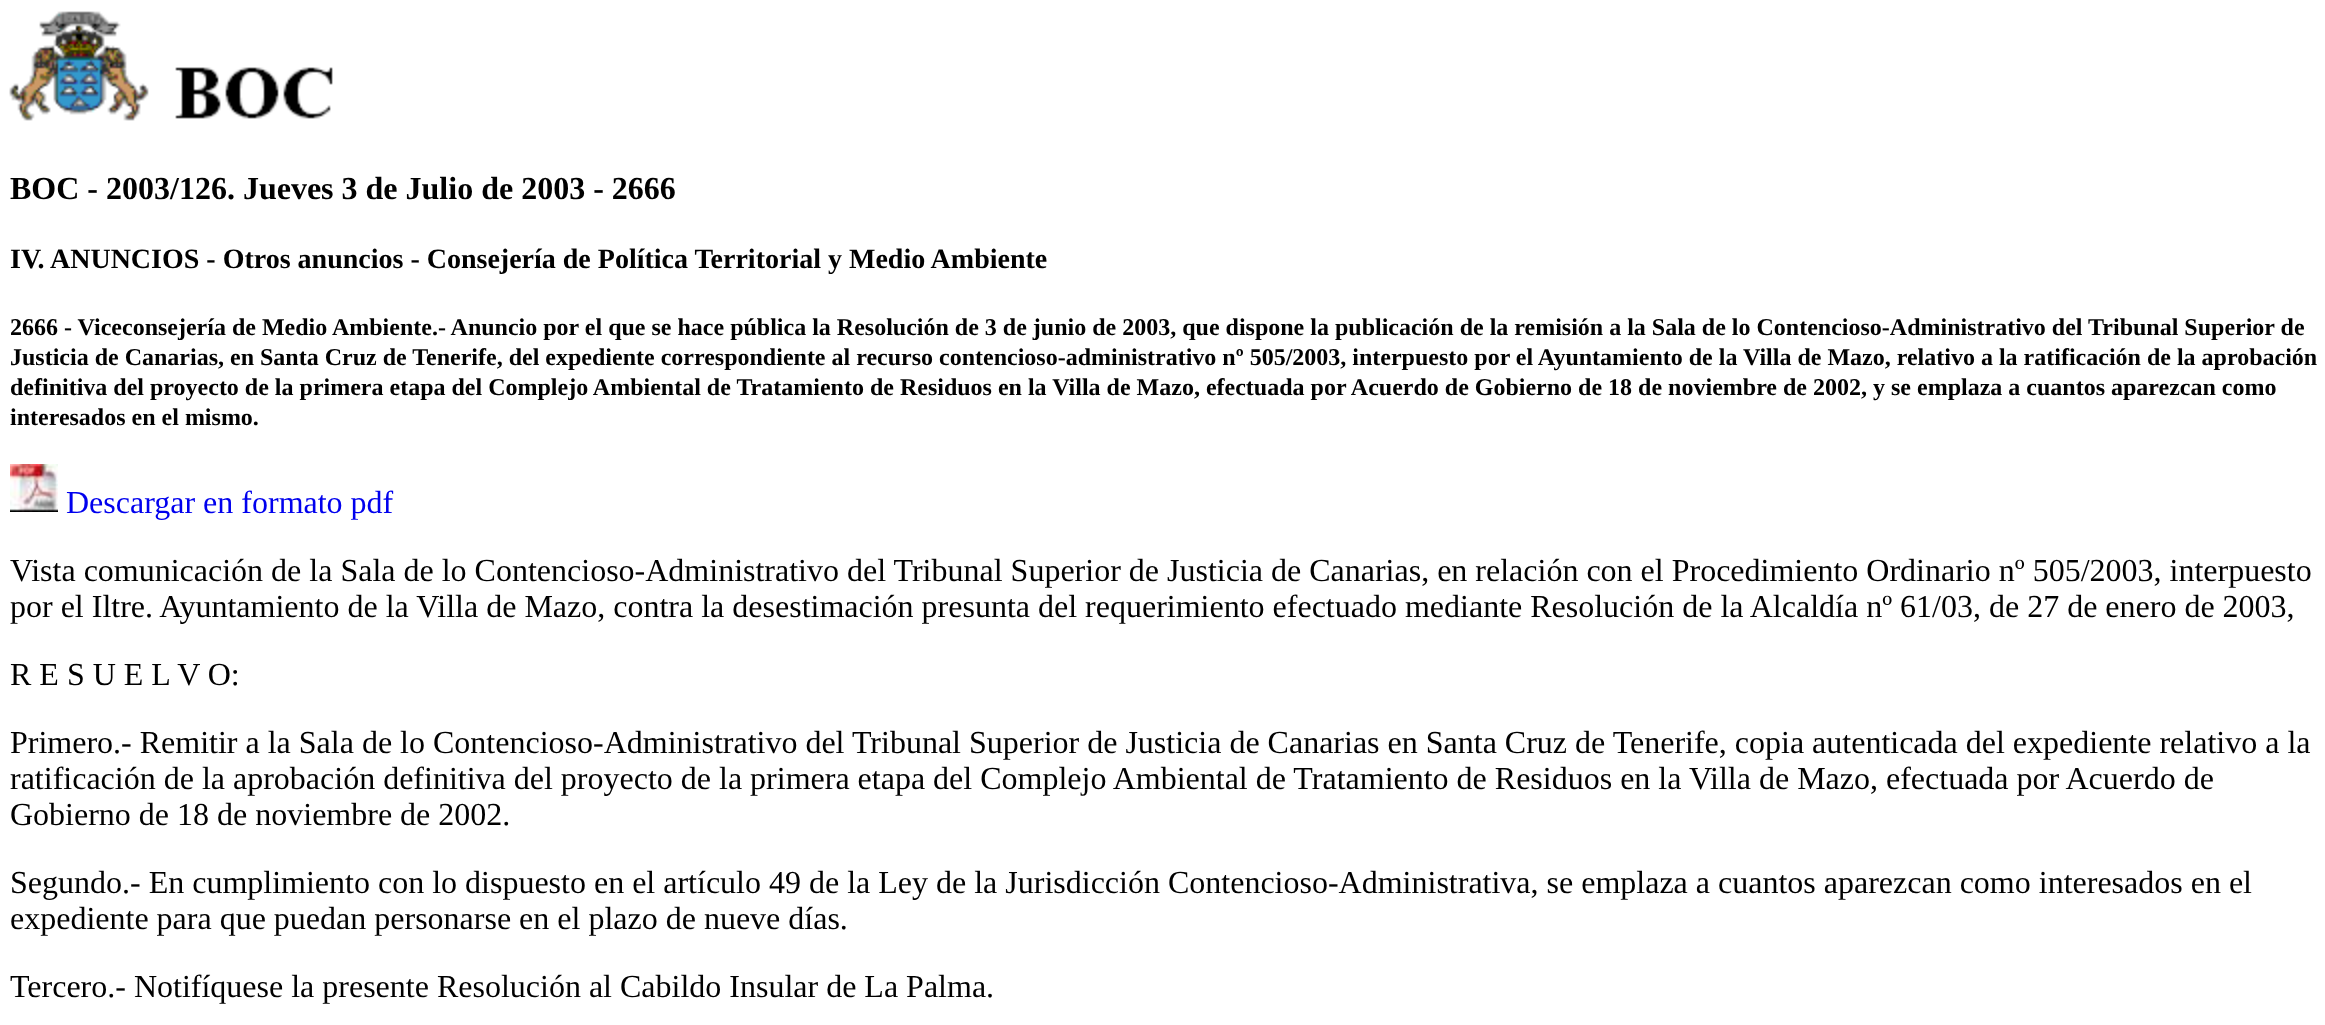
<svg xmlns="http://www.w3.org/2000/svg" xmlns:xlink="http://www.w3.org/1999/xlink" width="2325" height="1025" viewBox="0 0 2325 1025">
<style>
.cls-1{font:bold 32px Liberation Serif;fill:#000000}
.cls-2{font:bold 28px Liberation Serif;fill:#000000}
.cls-3{font:bold 24px Liberation Serif;fill:#000000}
.cls-4{font:32px Liberation Serif;fill:#0000ee}
.cls-5{font:32px Liberation Serif;fill:#000000}
</style>
<rect width="100%" height="100%" fill="#ffffff"/>
<image xlink:href="image0.png" x="9" y="11" width="140" height="110"/>
<image xlink:href="image1.png" x="175" y="67" width="158" height="52"/>
<image xlink:href="image2.png" x="10" y="464" width="48" height="48"/>
<text class="cls-1" x="10" y="199">BOC - 2003/126. Jueves 3 de Julio de 2003 - 2666</text>
<text class="cls-2" x="10" y="268">IV. ANUNCIOS - Otros anuncios - Consejería de Política Territorial y Medio Ambiente</text>
<text class="cls-3"><tspan x="10" y="335">2666 - Viceconsejería de Medio Ambiente.- Anuncio por el que se hace pública la Resolución de 3 de junio de 2003, que dispone la publicación de la remisión a la Sala de lo Contencioso-Administrativo del Tribunal Superior de</tspan><tspan x="10" y="365">Justicia de Canarias, en Santa Cruz de Tenerife, del expediente correspondiente al recurso contencioso-administrativo nº 505/2003, interpuesto por el Ayuntamiento de la Villa de Mazo, relativo a la ratificación de la aprobación</tspan><tspan x="10" y="395">definitiva del proyecto de la primera etapa del Complejo Ambiental de Tratamiento de Residuos en la Villa de Mazo, efectuada por Acuerdo de Gobierno de 18 de noviembre de 2002, y se emplaza a cuantos aparezcan como</tspan><tspan x="10" y="425">interesados en el mismo.</tspan></text>
<text class="cls-4" x="66" y="513">Descargar en formato pdf</text>
<text class="cls-5"><tspan x="10" y="581">Vista comunicación de la Sala de lo Contencioso-Administrativo del Tribunal Superior de Justicia de Canarias, en relación con el Procedimiento Ordinario nº 505/2003, interpuesto</tspan><tspan x="10" y="617">por el Iltre. Ayuntamiento de la Villa de Mazo, contra la desestimación presunta del requerimiento efectuado mediante Resolución de la Alcaldía nº 61/03, de 27 de enero de 2003,</tspan></text>
<text class="cls-5" x="10" y="685">R E S U E L V O:</text>
<text class="cls-5"><tspan x="10" y="753">Primero.- Remitir a la Sala de lo Contencioso-Administrativo del Tribunal Superior de Justicia de Canarias en Santa Cruz de Tenerife, copia autenticada del expediente relativo a la</tspan><tspan x="10" y="789">ratificación de la aprobación definitiva del proyecto de la primera etapa del Complejo Ambiental de Tratamiento de Residuos en la Villa de Mazo, efectuada por Acuerdo de</tspan><tspan x="10" y="825">Gobierno de 18 de noviembre de 2002.</tspan></text>
<text class="cls-5"><tspan x="10" y="893">Segundo.- En cumplimiento con lo dispuesto en el artículo 49 de la Ley de la Jurisdicción Contencioso-Administrativa, se emplaza a cuantos aparezcan como interesados en el</tspan><tspan x="10" y="929">expediente para que puedan personarse en el plazo de nueve días.</tspan></text>
<text class="cls-5" x="10" y="997">Tercero.- Notifíquese la presente Resolución al Cabildo Insular de La Palma.</text>
</svg>
